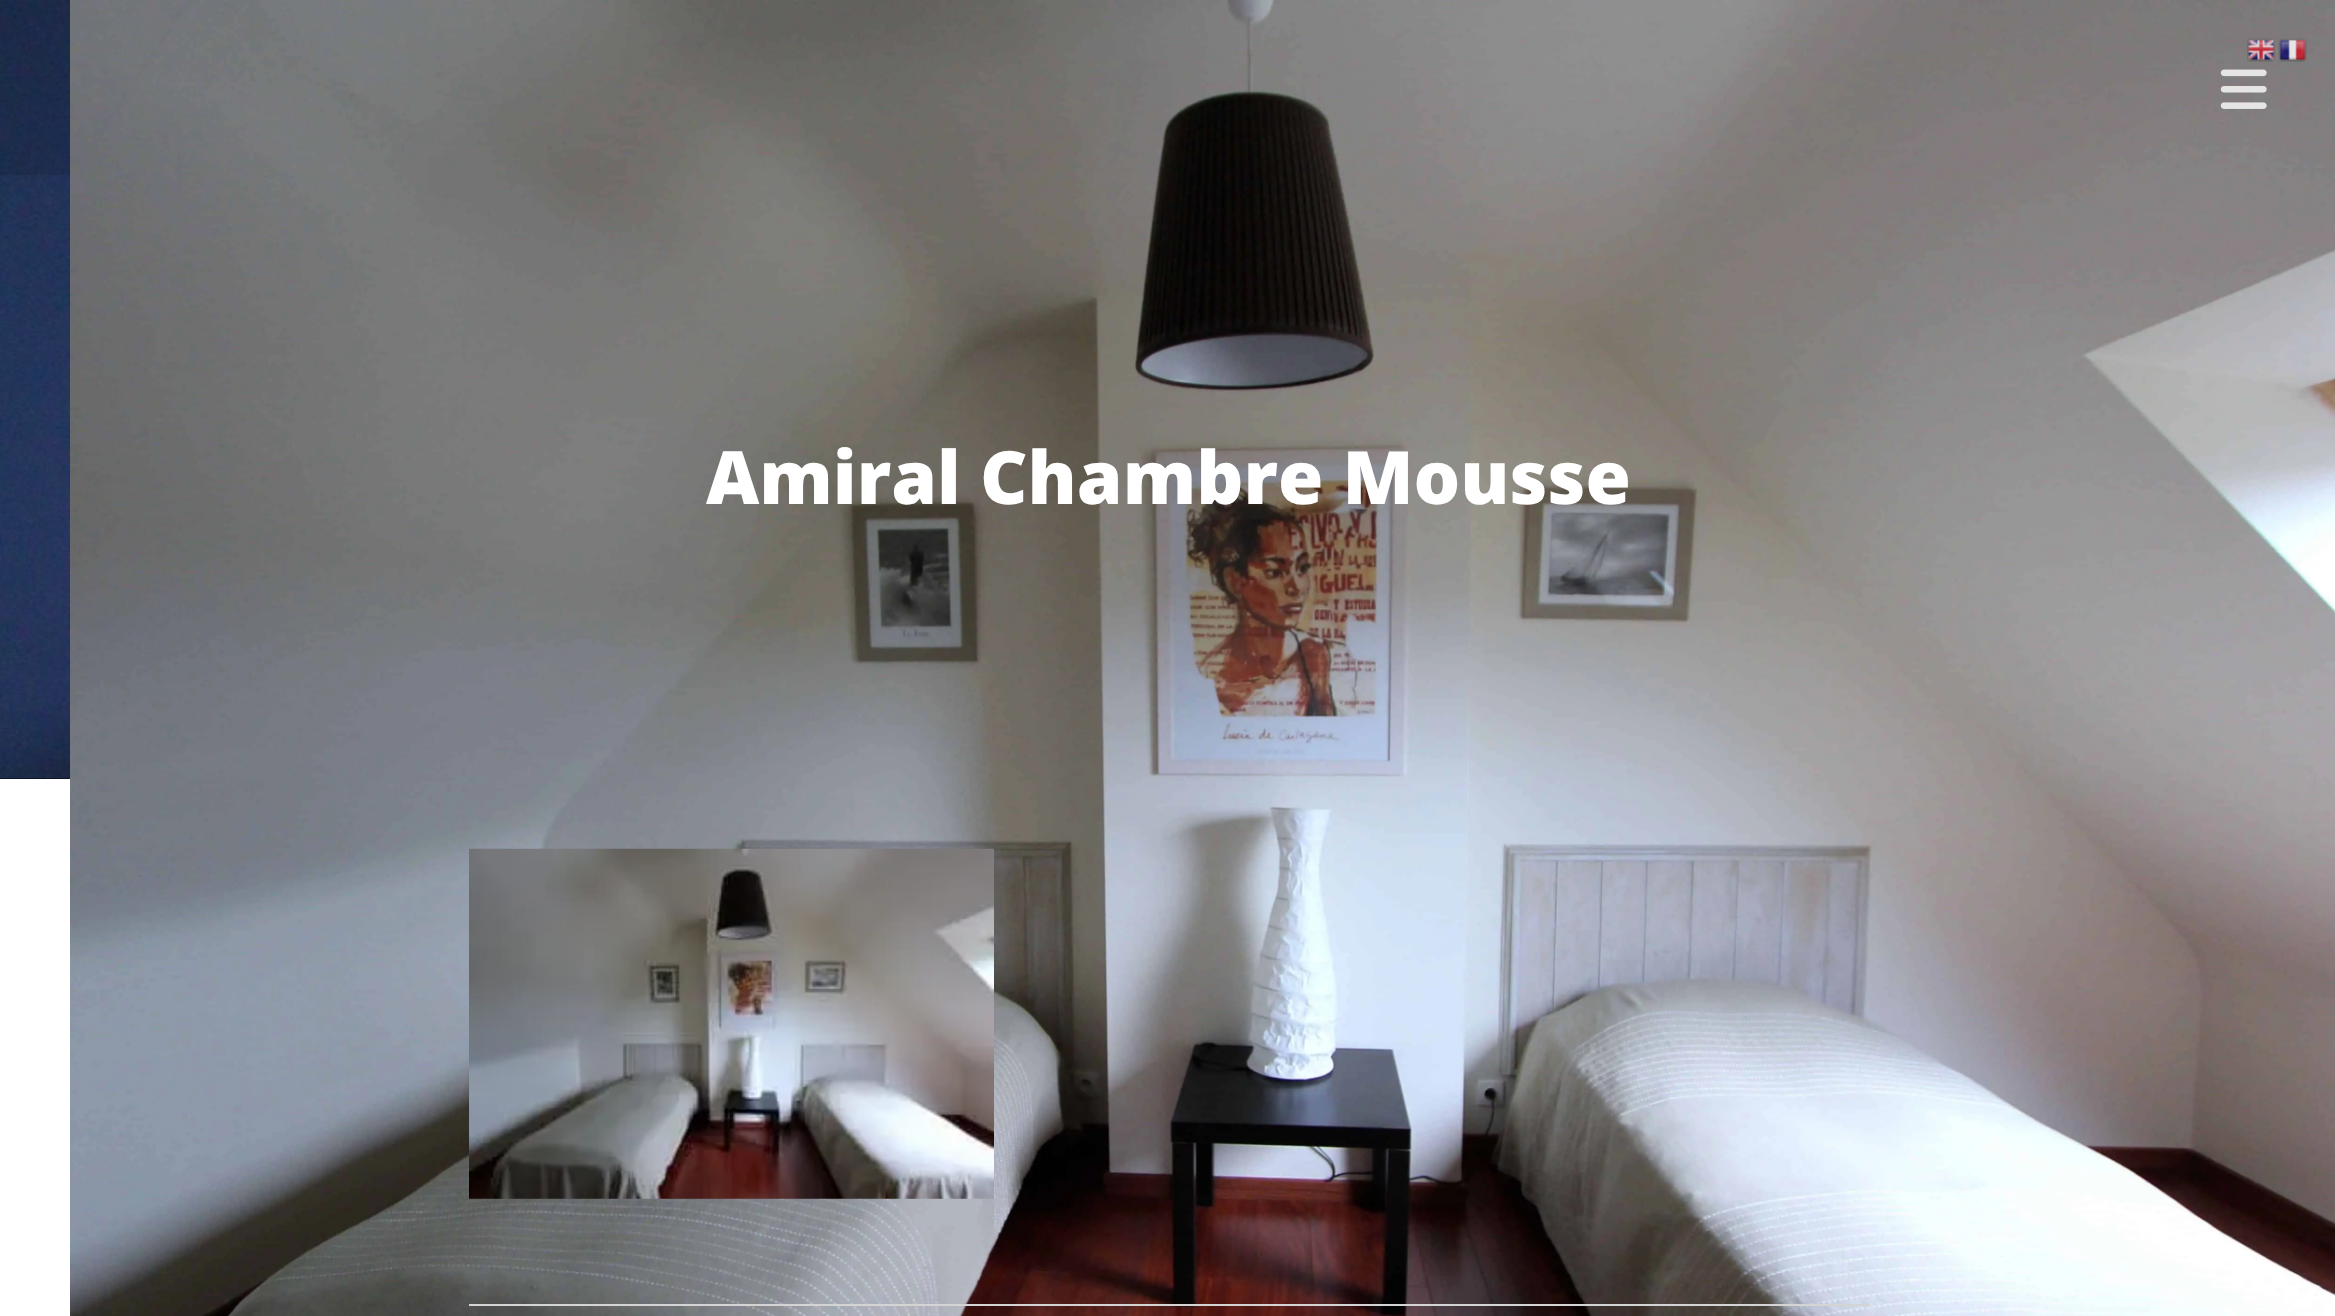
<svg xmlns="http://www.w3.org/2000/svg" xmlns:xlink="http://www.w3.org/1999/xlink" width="2335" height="1316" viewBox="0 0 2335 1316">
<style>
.cls-1{font:800 73.5px Open Sans;fill:#ffffff}
</style>
<rect width="100%" height="100%" fill="#ffffff"/>
<image xlink:href="image3.png" x="70" y="0" width="2265" height="1316"/>
<image xlink:href="image0.png" x="2247" y="38" width="28" height="24"/>
<image xlink:href="image1.png" x="2278" y="38" width="29" height="24"/>
<rect fill="#000000" x="0" y="778" width="70" height="1"/>
<image xlink:href="image2.png" x="0" y="0" width="70" height="779"/>
<rect fill="#000000" fill-opacity="0.1" x="0" y="0" width="70" height="175"/>
<image xlink:href="image4.png" x="2220" y="69" width="47" height="40"/>
<image xlink:href="image5.png" x="469" y="848" width="525" height="351"/>
<rect fill="#d4d4d4" x="469" y="1304" width="1400" height="2"/>
<text class="cls-1" x="706" y="504">Amiral Chambre Mousse</text>
</svg>
